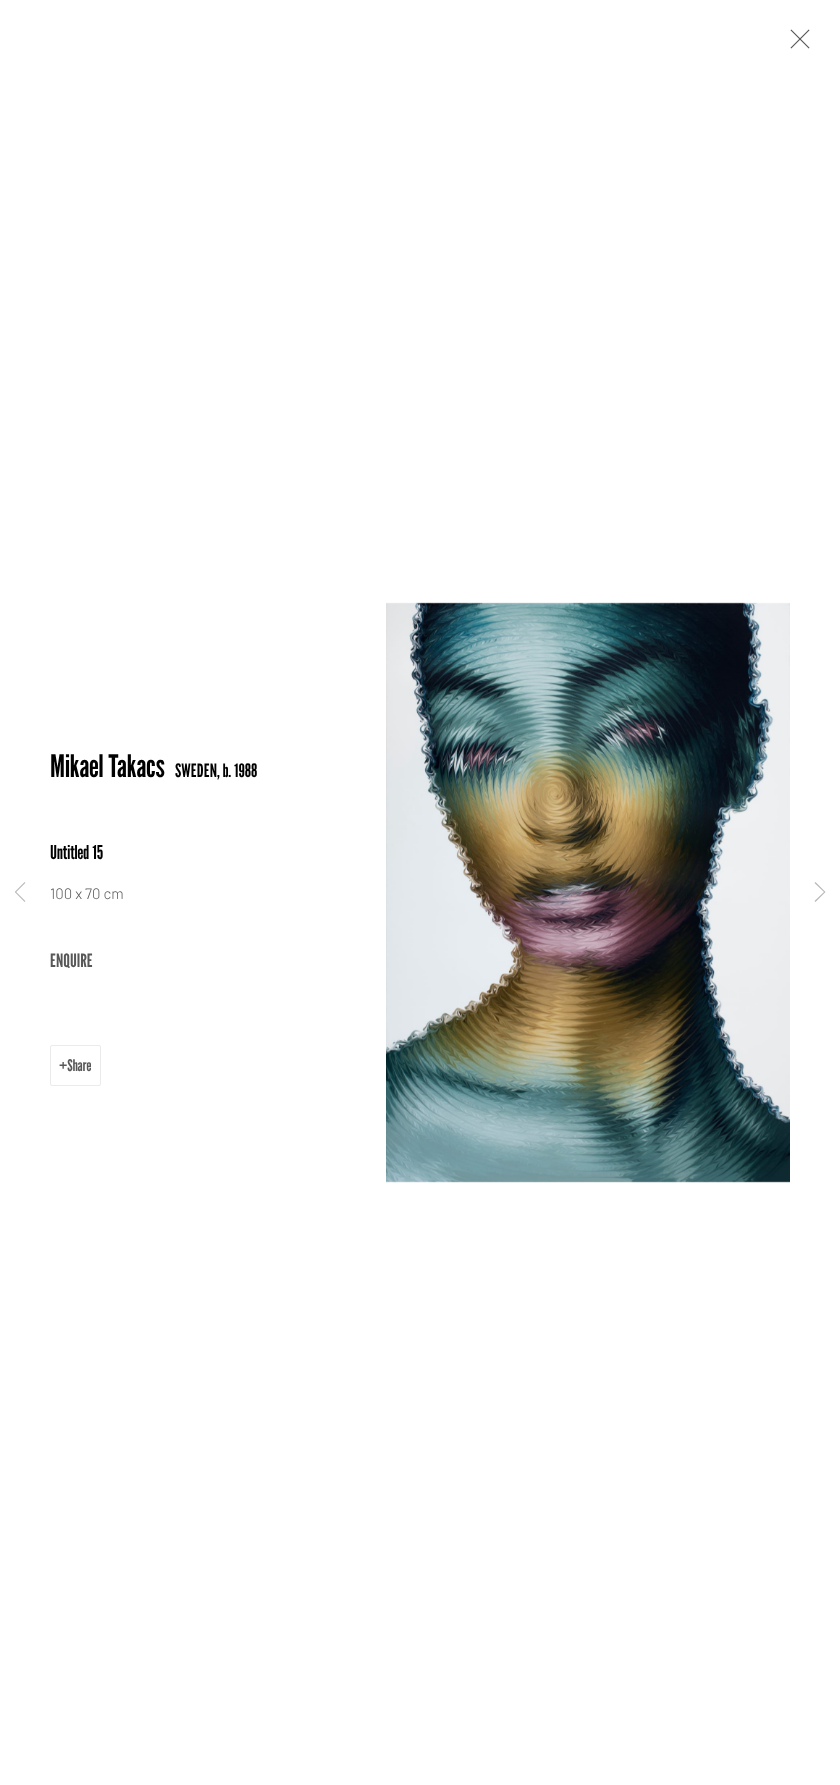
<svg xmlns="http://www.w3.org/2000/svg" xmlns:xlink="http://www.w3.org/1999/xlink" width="840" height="1785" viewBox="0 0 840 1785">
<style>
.cls-1{font:31px League Gothic;fill:#010101}
.cls-2{font:18.5px League Gothic;fill:#010101}
.cls-3{font:19px League Gothic;fill:#010101}
.cls-4{font:300 15px Barlow;fill:#585858}
.cls-5{font:18.5px League Gothic;fill:#585858}
.cls-6{font:16px League Gothic;fill:#585858}
</style>
<rect width="100%" height="100%" fill="#ffffff"/>
<image xlink:href="image0.png" x="790" y="29" width="20" height="20"/>
<rect fill="none" stroke="#ebebeb" x="50.5" y="1045.5" width="50" height="40" rx="1.5"/>
<image xlink:href="image1.png" x="386" y="602" width="404" height="581"/>
<image xlink:href="image2.png" x="15" y="882" width="11" height="20"/>
<path fill="#b9b9b9" d="M825.5 892L815.5 882L814.5 883L824 892L814.5 901L815.5 902Z"/>
<text class="cls-1" x="50" y="777">Mikael Takacs</text>
<text class="cls-2" x="175" y="777">SWEDEN, b. 1988</text>
<text class="cls-3" x="50" y="859">Untitled 15</text>
<text class="cls-4" x="50" y="899">100 x 70 cm</text>
<text class="cls-5" x="50" y="967">ENQUIRE</text>
<text class="cls-6" x="59" y="1071">+Share</text>
</svg>
